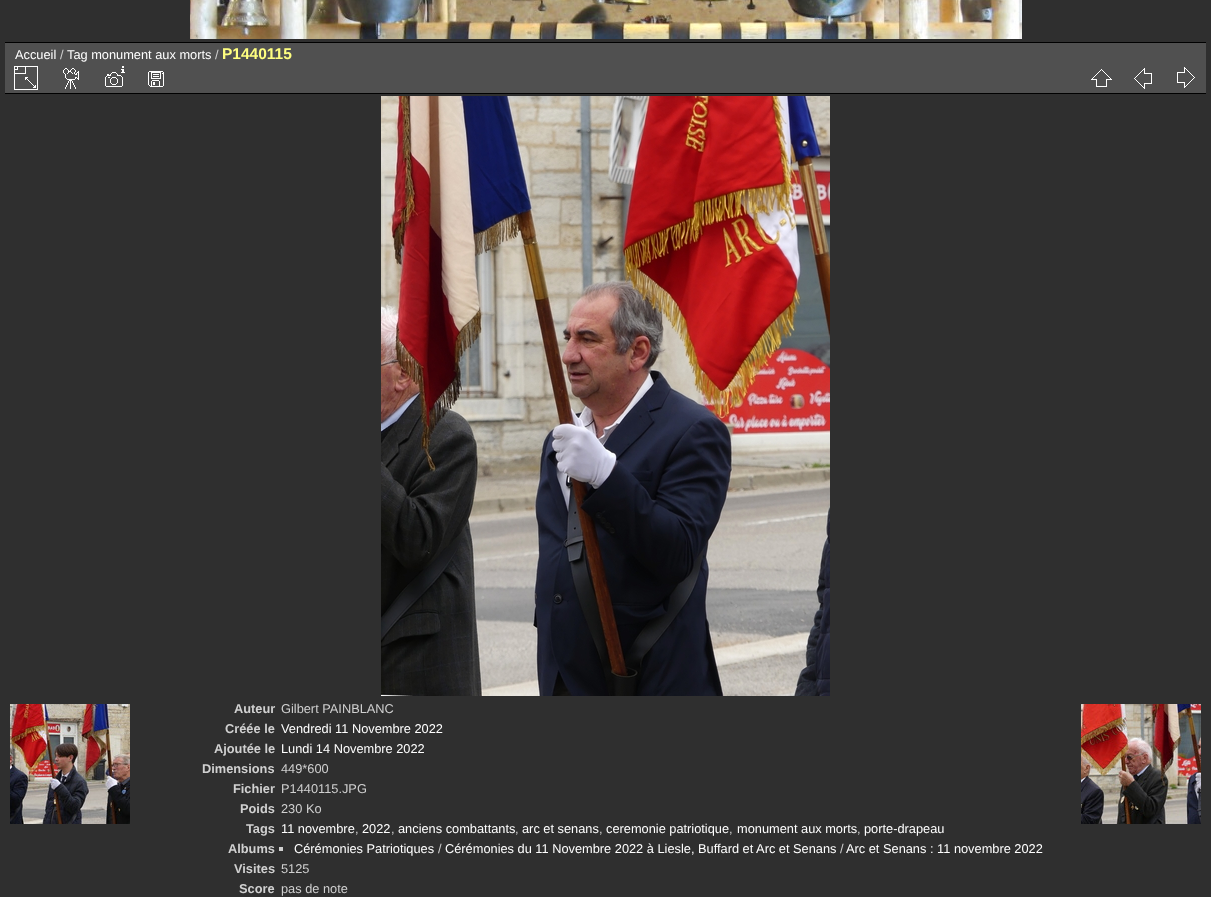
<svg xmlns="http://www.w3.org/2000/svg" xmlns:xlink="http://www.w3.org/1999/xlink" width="1211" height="897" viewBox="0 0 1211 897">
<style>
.cls-1{font:12.8px Liberation Sans;fill:#ffffff}
.cls-2{font:12.8px Liberation Sans;fill:#d0d0d0}
.cls-3{font:bold 15.5px Liberation Sans;fill:#ffff80}
.cls-4{font:bold 12.8px Liberation Sans;fill:#d0d0d0}
</style>
<rect width="100%" height="100%" fill="#2f2f2f"/>
<image xlink:href="image0.png" x="190" y="0" width="832" height="39"/>
<rect fill="#505050" x="5" y="43" width="1201" height="50"/>
<rect fill="#000000" x="5" y="93" width="1201" height="1"/>
<image xlink:href="image1.png" x="14" y="66" width="24" height="24"/>
<image xlink:href="image2.png" x="63" y="68" width="16" height="21"/>
<image xlink:href="image3.png" x="105" y="66" width="20" height="21"/>
<image xlink:href="image4.png" x="148" y="71" width="16" height="16"/>
<image xlink:href="image5.png" x="1091" y="69" width="21" height="18"/>
<image xlink:href="image6.png" x="1134" y="68" width="18" height="21"/>
<image xlink:href="image7.png" x="1177" y="67" width="18" height="21"/>
<rect fill="#000000" x="5" y="42" width="1201" height="1"/>
<image xlink:href="image8.png" x="381" y="96" width="449" height="600"/>
<rect fill="#d0d0d0" x="279" y="847" width="4" height="4"/>
<image xlink:href="image9.png" x="10" y="704" width="120" height="120"/>
<image xlink:href="image10.png" x="1081" y="704" width="120" height="120"/>
<text class="cls-1" x="15" y="59">Accueil</text>
<text class="cls-2" x="60" y="59">/</text>
<text class="cls-1" x="67" y="59">Tag monument aux morts</text>
<text class="cls-2" x="215" y="59">/</text>
<text class="cls-3" x="222" y="59">P1440115</text>
<text class="cls-4" x="234" y="713">Auteur</text>
<text class="cls-2" x="281" y="713">Gilbert PAINBLANC</text>
<text class="cls-4" x="225" y="733">Créée le</text>
<text class="cls-1" x="281" y="733">Vendredi 11 Novembre 2022</text>
<text class="cls-4" x="214" y="753">Ajoutée le</text>
<text class="cls-1" x="281" y="753">Lundi 14 Novembre 2022</text>
<text class="cls-4" x="202" y="773">Dimensions</text>
<text class="cls-2" x="281" y="773">449*600</text>
<text class="cls-4" x="233" y="793">Fichier</text>
<text class="cls-2" x="281" y="793">P1440115.JPG</text>
<text class="cls-4" x="240" y="813">Poids</text>
<text class="cls-2" x="281" y="813">230 Ko</text>
<text class="cls-4" x="246" y="833">Tags</text>
<text class="cls-1" x="281" y="833">11 novembre</text>
<text class="cls-2" x="355" y="833">,</text>
<text class="cls-1" x="362" y="833">2022</text>
<text class="cls-2" x="391" y="833">,</text>
<text class="cls-1" x="398" y="833">anciens combattants</text>
<text class="cls-2" x="515" y="833">,</text>
<text class="cls-1" x="522" y="833">arc et senans</text>
<text class="cls-2" x="599" y="833">,</text>
<text class="cls-1" x="606" y="833">ceremonie patriotique</text>
<text class="cls-2" x="729" y="833">,</text>
<text class="cls-1" x="737" y="833">monument aux morts</text>
<text class="cls-2" x="857" y="833">,</text>
<text class="cls-1" x="864" y="833">porte-drapeau</text>
<text class="cls-4" x="228" y="853">Albums</text>
<text class="cls-1" x="294" y="853">Cérémonies Patriotiques</text>
<text class="cls-2" x="438" y="853">/</text>
<text class="cls-1" x="445" y="853">Cérémonies du 11 Novembre 2022 à Liesle, Buffard et Arc et Senans</text>
<text class="cls-2" x="840" y="853">/</text>
<text class="cls-1" x="846" y="853">Arc et Senans : 11 novembre 2022</text>
<text class="cls-4" x="234" y="873">Visites</text>
<text class="cls-2" x="281" y="873">5125</text>
<text class="cls-4" x="239" y="893">Score</text>
<text class="cls-2" x="281" y="893">pas de note</text>
</svg>
